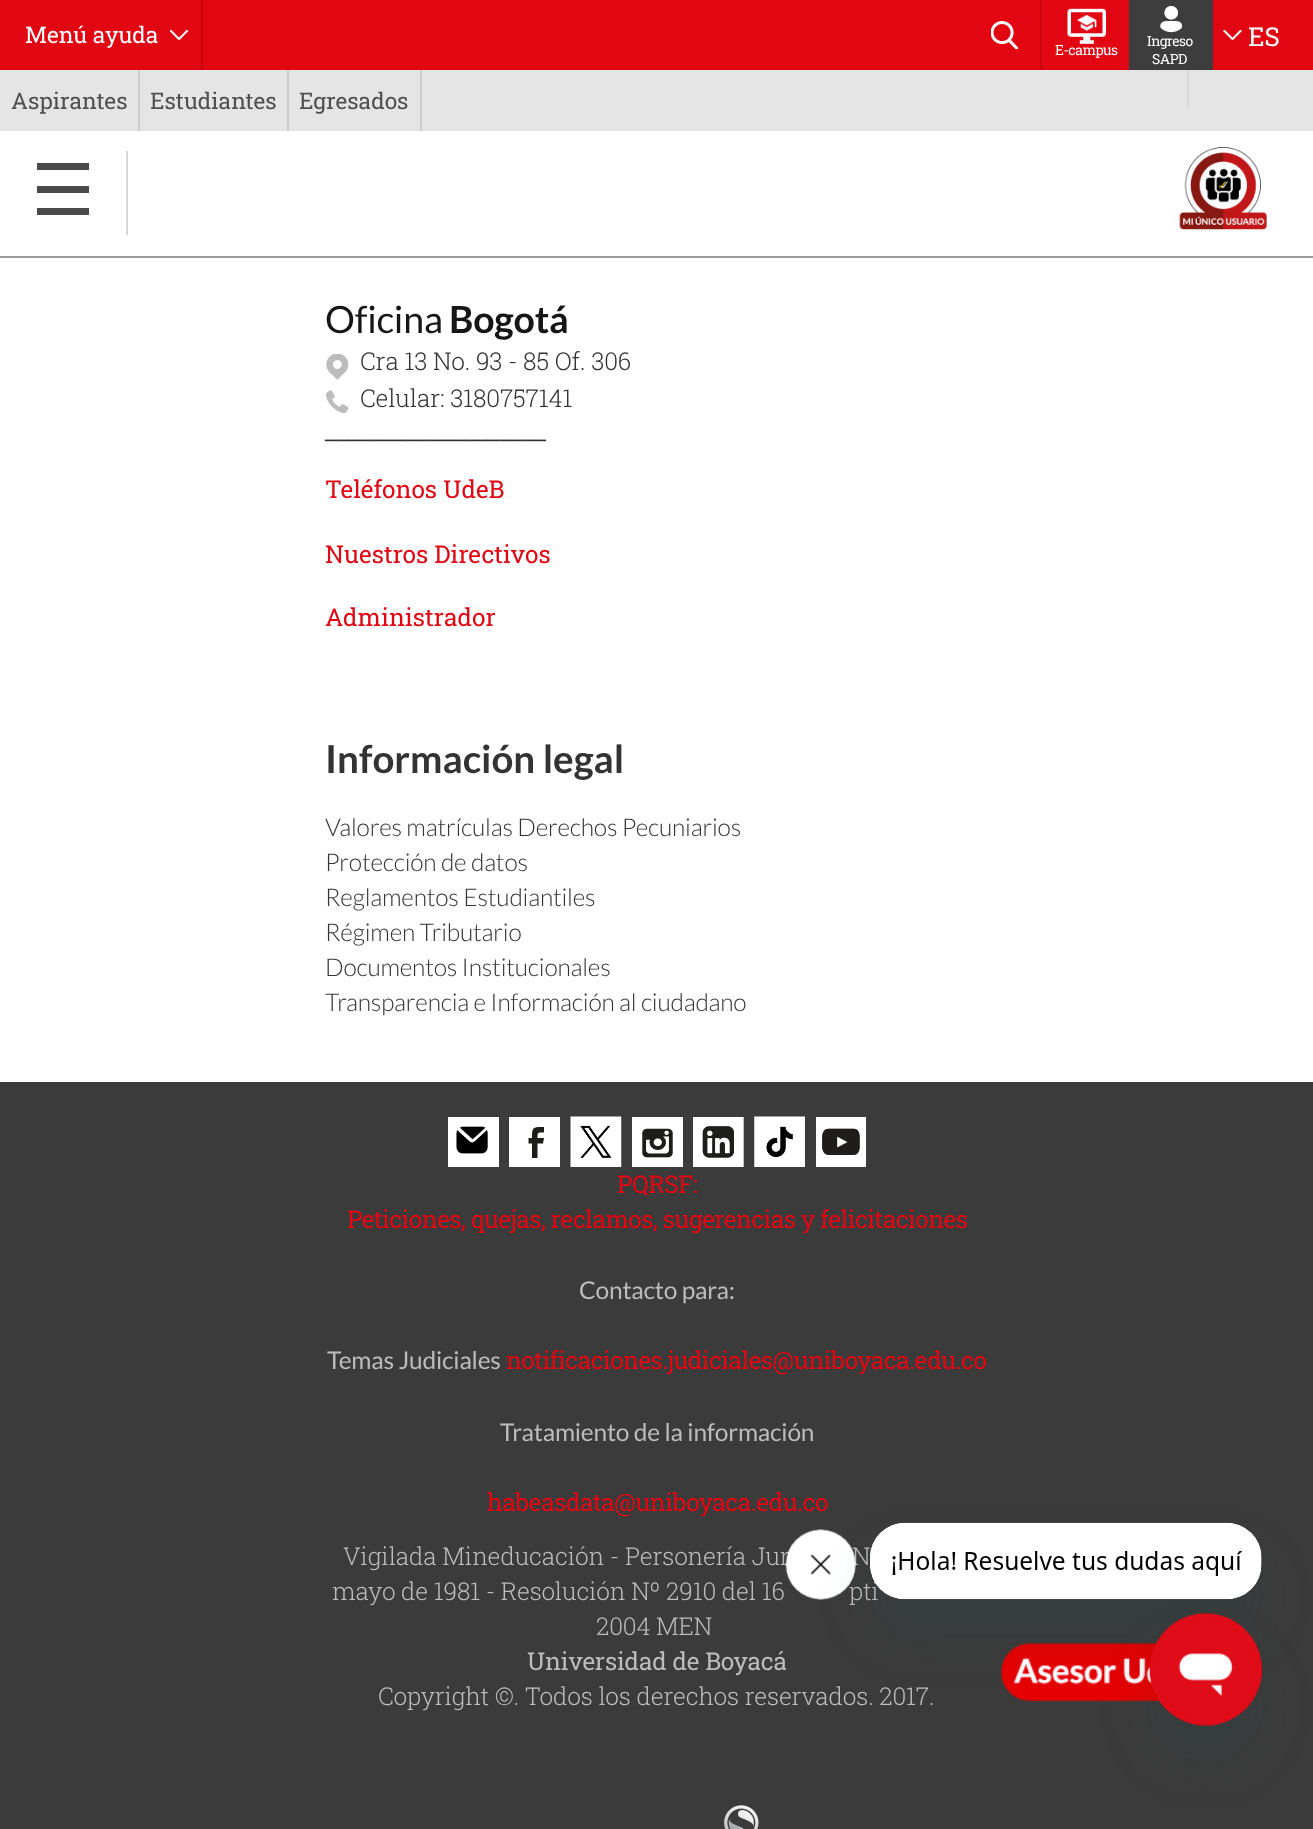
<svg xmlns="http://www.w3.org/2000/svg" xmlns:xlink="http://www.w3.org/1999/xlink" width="1313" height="1829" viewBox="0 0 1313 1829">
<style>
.cls-1{font:22.75px Roboto Slab;fill:#ffffff}
.cls-2{font:26px Roboto Slab;fill:#ffffff}
.cls-3{font:14px Roboto Slab;letter-spacing:-0.53px;fill:#ffffff}
.cls-4{font:22.75px Roboto Slab;fill:#505050}
.cls-5{font:37.5px Lato;letter-spacing:-0.2px;fill:#161616}
.cls-6{font:bold 37.5px Lato;letter-spacing:-0.2px;fill:#161616}
.cls-7{font:300 24.5px Roboto Slab;letter-spacing:-0.2px;fill:#333333}
.cls-8{font:bold 23.25px Liberation Serif;fill:#333333}
.cls-9{font:24.5px Roboto Slab;fill:#e20613}
.cls-10{font:bold 38.5px Lato;fill:#333333}
.cls-11{font:300 24.5px Lato;letter-spacing:-0.2px;fill:#333333}
.cls-12{font:24.5px Roboto Slab;letter-spacing:-0.53px;fill:#e20613}
.cls-13{font:24.5px Lato;letter-spacing:-0.2px;fill:#bcbcbc}
.cls-14{font:300 24.5px Roboto Slab;letter-spacing:-0.2px;fill:#bcbcbc}
.cls-15{font:24.5px Roboto Slab;letter-spacing:-0.2px;fill:#bcbcbc}
</style>
<defs>
<clipPath id="clip1"><rect x="326" y="473" width="178" height="36"/></clipPath>
<clipPath id="clip2"><rect x="326" y="537" width="224" height="37"/></clipPath>
</defs>
<rect width="100%" height="100%" fill="#ffffff"/>
<rect fill="#e20613" x="0" y="0" width="1313" height="70"/>
<rect fill="#c50510" x="201" y="0" width="2" height="70"/>
<image xlink:href="image0.png" x="170" y="30" width="19" height="10"/>
<image xlink:href="image1.png" x="991" y="21" width="28" height="28"/>
<rect fill="#e5e5e5" x="0" y="70" width="1313" height="61"/>
<rect fill="#d8d8d8" x="1187" y="70" width="2" height="39"/>
<image xlink:href="image2.png" x="1223" y="30" width="19" height="10"/>
<rect fill="#c50510" x="1040" y="0" width="2" height="70"/>
<image xlink:href="image3.png" x="1067" y="8" width="39" height="36"/>
<rect fill="#3d3d3d" x="1129" y="0" width="84" height="70"/>
<image xlink:href="image4.png" x="1160" y="5" width="23" height="28"/>
<rect fill="#cccccc" x="138" y="70" width="2" height="61"/>
<rect fill="#cccccc" x="287" y="70" width="2" height="61"/>
<rect fill="#cccccc" x="420" y="70" width="2" height="61"/>
<rect fill="#9b9b9b" x="0" y="256" width="1313" height="2"/>
<rect fill="#4a4a4a" x="37" y="163" width="52" height="7"/>
<rect fill="#d8d8d8" x="126" y="151" width="2" height="84"/>
<rect fill="#4a4a4a" x="37" y="186" width="52" height="7"/>
<rect fill="#4a4a4a" x="37" y="208" width="52" height="7"/>
<image xlink:href="image5.png" x="1179" y="147" width="88" height="83"/>
<image xlink:href="image6.png" x="326" y="354" width="23" height="26"/>
<image xlink:href="image7.png" x="326" y="390" width="23" height="23"/>
<rect fill="#3c3b3b" x="0" y="1082" width="1313" height="747"/>
<rect fill="#ffffff" x="448" y="1117" width="51" height="50"/>
<image xlink:href="image8.png" x="456" y="1126" width="32" height="28"/>
<rect fill="#ffffff" x="509" y="1117" width="51" height="50"/>
<path fill="#1d1d1b" fill-rule="evenodd" d="M537.5 1158V1143.5H543L544 1138H537.5C537.5 1131.5 538 1132.5 544 1132.5V1127C533.5 1127 532 1126.5 532 1138H528.5V1143.5H532V1158Z"/>
<image xlink:href="image9.png" x="570" y="1116" width="52" height="51"/>
<image xlink:href="image10.png" x="632" y="1117" width="51" height="50"/>
<image xlink:href="image11.png" x="693" y="1117" width="51" height="50"/>
<image xlink:href="image12.png" x="754" y="1116" width="51" height="51"/>
<image xlink:href="image13.png" x="816" y="1117" width="50" height="50"/>
<image xlink:href="image14.png" x="724" y="1805" width="35" height="24"/>
<image xlink:href="image15.png" x="1000" y="1643" width="262" height="59"/>
<text class="cls-1" x="25" y="43">Menú ayuda</text>
<text class="cls-2" x="1248" y="46">ES</text>
<text class="cls-3" x="1055" y="55">E-campus</text>
<text class="cls-3" x="1147" y="46">Ingreso</text>
<text class="cls-3" x="1152" y="64">SAPD</text>
<text class="cls-4" x="11" y="109">Aspirantes</text>
<text class="cls-4" x="150" y="109">Estudiantes</text>
<text class="cls-4" x="299" y="109">Egresados</text>
<text class="cls-5" x="325" y="333">Oficina</text>
<text class="cls-6" x="449" y="333">Bogotá</text>
<text class="cls-7"><tspan x="360" y="370">Cra 13 No. 93 - 85 Of. 306</tspan><tspan x="360" y="407">Celular: 3180757141</tspan></text>
<text class="cls-8" x="325" y="438">___________________</text>
<g clip-path="url(#clip1)">
<text class="cls-9" x="325" y="498">Teléfonos UdeB</text>
</g>
<g clip-path="url(#clip2)">
<text class="cls-9" x="325" y="563">Nuestros Directivos</text>
</g>
<text class="cls-9" x="325" y="626">Administrador</text>
<text class="cls-10" x="325" y="773">Información legal</text>
<text class="cls-11"><tspan x="325" y="836">Valores matrículas Derechos Pecuniarios</tspan><tspan x="325" y="871">Protección de datos</tspan><tspan x="325" y="906">Reglamentos Estudiantiles</tspan><tspan x="325" y="941">Régimen Tributario</tspan><tspan x="325" y="976">Documentos Institucionales</tspan><tspan x="325" y="1011">Transparencia e Información al ciudadano</tspan></text>
<text class="cls-12" x="617" y="1193">PQRSF:</text>
<text class="cls-12" x="347" y="1228">Peticiones, quejas, reclamos, sugerencias y felicitaciones</text>
<text class="cls-13" x="579" y="1299">Contacto para:</text>
<text class="cls-13" x="327" y="1369">Temas Judiciales</text>
<text class="cls-12" x="506" y="1369">notificaciones.judiciales@uniboyaca.edu.co</text>
<text class="cls-13" x="500" y="1441">Tratamiento de la información</text>
<text class="cls-12" x="487" y="1511">habeasdata@uniboyaca.edu.co</text>
<text class="cls-14" x="343" y="1565">Vigilada Mineducación - Personería Jur</text>
<text class="cls-14" x="852" y="1565">N</text>
<text class="cls-14" x="332" y="1600">mayo de 1981 - Resolución Nº 2910 del 16</text>
<text class="cls-14" x="849" y="1600">pti</text>
<text class="cls-14" x="596" y="1635">2004 MEN</text>
<text class="cls-15" x="527" y="1670">Universidad de Boyacá</text>
<text class="cls-14" x="378" y="1705">Copyright ©. Todos los derechos reservados. 2017.</text>
<image xlink:href="image17.png" x="785" y="1529" width="71" height="71"/>
<rect fill="#17494d" fill-opacity="0.15" filter="blur(26px)" x="870" y="1558" width="392" height="77" rx="35"/>
<image xlink:href="image16.png" x="870" y="1522" width="392" height="78"/>
<rect fill="#17494d" fill-opacity="0.15" filter="blur(26px)" x="1150" y="1649" width="112" height="112" rx="56"/>
<image xlink:href="image18.png" x="1149" y="1613" width="113" height="113"/>
</svg>
